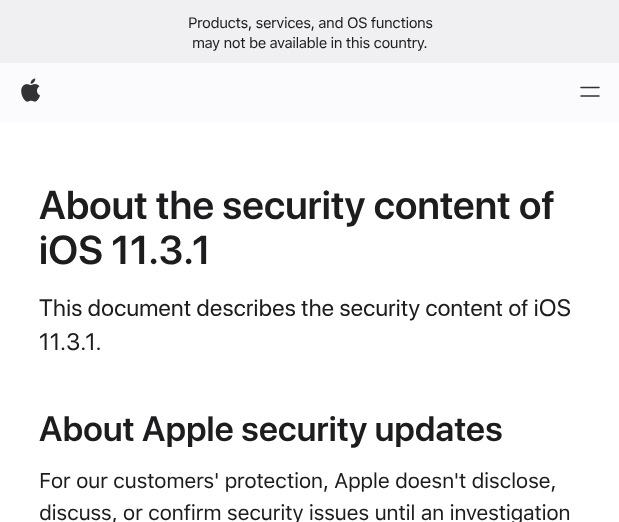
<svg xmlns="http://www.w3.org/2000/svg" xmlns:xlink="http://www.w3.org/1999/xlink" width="619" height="522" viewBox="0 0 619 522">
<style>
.cls-1{font:15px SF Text;letter-spacing:-0.47px;fill:#1d1d1f}
.cls-2{font:600 40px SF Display;letter-spacing:0.15px;fill:#1d1d1f}
.cls-3{font:23.75px SF Display;letter-spacing:0.3px;fill:#1d1d1f}
.cls-4{font:600 35px SF Display;letter-spacing:0.25px;fill:#1d1d1f}
.cls-5{font:21.25px SF Text;letter-spacing:-0.47px;fill:#1d1d1f}
</style>
<rect width="100%" height="100%" fill="#ffffff"/>
<rect fill="#f0f0f2" x="0" y="0" width="619" height="63"/>
<rect fill="#fbfbfd" x="0" y="63" width="619" height="60"/>
<image xlink:href="image0.png" x="21" y="78" width="19" height="24"/>
<path fill="none" stroke="#323233" stroke-width="1.5" stroke-linecap="round" stroke-linejoin="round" d="M581 96H599M581 87.5H599"/>
<text class="cls-1" x="188" y="28">Products, services, and OS functions</text>
<text class="cls-1" x="192" y="48">may not be available in this country.</text>
<text class="cls-2"><tspan x="39" y="219">About the security content of</tspan><tspan x="39" y="264">iOS 11.3.1</tspan></text>
<text class="cls-3"><tspan x="39" y="316">This document describes the security content of iOS</tspan><tspan x="39" y="350">11.3.1.</tspan></text>
<text class="cls-4" x="39" y="441">About Apple security updates</text>
<text class="cls-5"><tspan x="39" y="488">For our customers' protection, Apple doesn't disclose,</tspan><tspan x="39" y="520">discuss, or confirm security issues until an investigation</tspan></text>
</svg>
